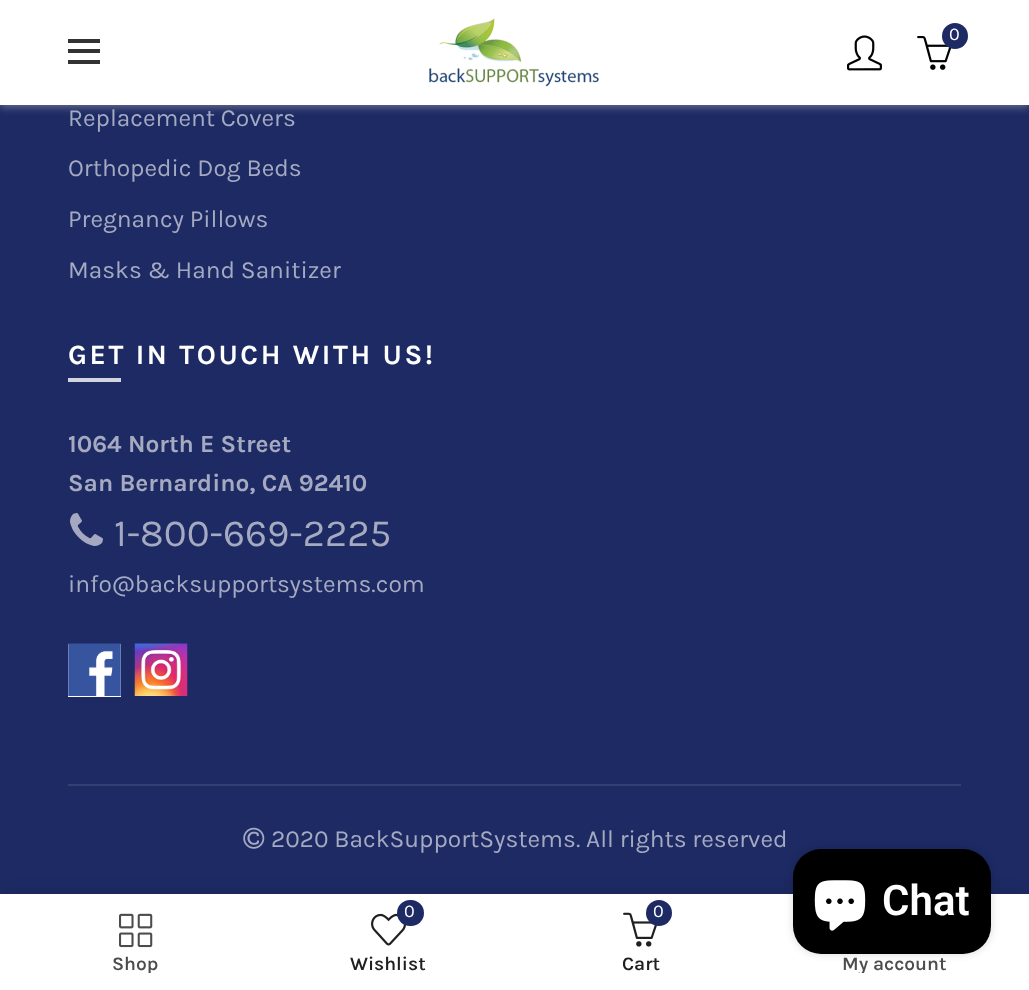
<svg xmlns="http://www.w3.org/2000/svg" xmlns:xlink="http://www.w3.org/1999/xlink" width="1029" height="990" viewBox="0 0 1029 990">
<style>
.cls-1{font:18px Karla;fill:#ffffff}
.cls-2{font:24.5px Karla;fill:#a5aac1}
.cls-3{font:bold 28px Karla;letter-spacing:2.6px;fill:#ffffff}
.cls-4{font:bold 24.5px Karla;fill:#a5aac1}
.cls-5{font:38.5px Karla;fill:#a5aac1}
.cls-6{font:600 42px Roboto;fill:#ffffff}
.cls-7{font:600 19.25px Karla;fill:#4c4c4c}
.cls-8{font:600 19.25px Karla;fill:#202020}
</style>
<defs>
<clipPath id="clip1"><rect x="26" y="954" width="219" height="19"/></clipPath>
<clipPath id="clip2"><rect x="786" y="954" width="217" height="19"/></clipPath>
</defs>
<rect width="100%" height="100%" fill="#1d2a64"/>
<rect fill="#bebebe" fill-opacity="0.5" filter="blur(4.5px)" x="0" y="2" width="1029" height="105"/>
<rect fill="#ffffff" x="0" y="0" width="1029" height="105"/>
<image xlink:href="image0.png" x="429" y="18" width="170" height="69"/>
<image xlink:href="image1.png" x="847" y="35" width="35" height="36"/>
<image xlink:href="image2.png" x="917" y="36" width="35" height="34"/>
<circle fill="#1d2a64" cx="955" cy="36" r="13"/>
<rect fill="#333333" x="68" y="49" width="32" height="4"/>
<rect fill="#333333" x="68" y="39" width="32" height="4"/>
<rect fill="#333333" x="68" y="60" width="32" height="4"/>
<rect fill="#d2d4e0" x="68" y="378" width="53" height="4"/>
<image xlink:href="image3.png" x="70" y="513" width="33" height="33"/>
<rect fill="#ffffff" x="68" y="644" width="53" height="53"/>
<image xlink:href="image4.png" x="68" y="643" width="53" height="53"/>
<image xlink:href="image5.png" x="134" y="643" width="54" height="53"/>
<rect fill="#343f74" x="68" y="784" width="893" height="2"/>
<image xlink:href="image6.png" x="243" y="827" width="22" height="22"/>
<rect fill="#000000" fill-opacity="0.12" filter="blur(8px)" x="0" y="894" width="1029" height="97"/>
<rect fill="#ffffff" x="0" y="894" width="1029" height="96"/>
<rect fill="#000000" fill-opacity="0.15" filter="blur(4.5px)" x="793" y="849" width="198" height="105" rx="28"/>
<rect fill="#000000" x="793" y="849" width="198" height="105" rx="28"/>
<image xlink:href="image7.png" x="814" y="880" width="52" height="51"/>
<image xlink:href="image8.png" x="119" y="913" width="34" height="35"/>
<image xlink:href="image9.png" x="371" y="913" width="35" height="33"/>
<rect fill="#1d2a64" x="397" y="900" width="27" height="26" rx="13"/>
<image xlink:href="image10.png" x="623" y="912" width="35" height="35"/>
<circle fill="#1d2a64" cx="659" cy="913" r="13"/>
<text class="cls-1" x="949" y="40">0</text>
<text class="cls-2" x="68" y="126">Replacement Covers</text>
<text class="cls-2" x="68" y="176">Orthopedic Dog Beds</text>
<text class="cls-2" x="68" y="227">Pregnancy Pillows</text>
<text class="cls-2" x="68" y="278">Masks &amp; Hand Sanitizer</text>
<text class="cls-3" x="68" y="364">GET IN TOUCH WITH US!</text>
<text class="cls-4"><tspan x="68" y="452">1064 North E Street</tspan><tspan x="68" y="491">San Bernardino, CA 92410</tspan></text>
<text class="cls-5" x="114" y="546">1-800-669-2225</text>
<text class="cls-2" x="68" y="592">info@backsupportsystems.com</text>
<text class="cls-2" x="271" y="847">2020 BackSupportSystems. All rights reserved</text>
<text class="cls-6" x="882" y="915">Chat</text>
<g clip-path="url(#clip1)">
<text class="cls-7" x="112" y="970">Shop</text>
</g>
<text class="cls-1" x="404" y="917">0</text>
<text class="cls-8" x="350" y="970">Wishlist</text>
<text class="cls-1" x="653" y="917">0</text>
<text class="cls-8" x="622" y="970">Cart</text>
<g clip-path="url(#clip2)">
<text class="cls-7" x="842" y="970">My account</text>
</g>
</svg>
